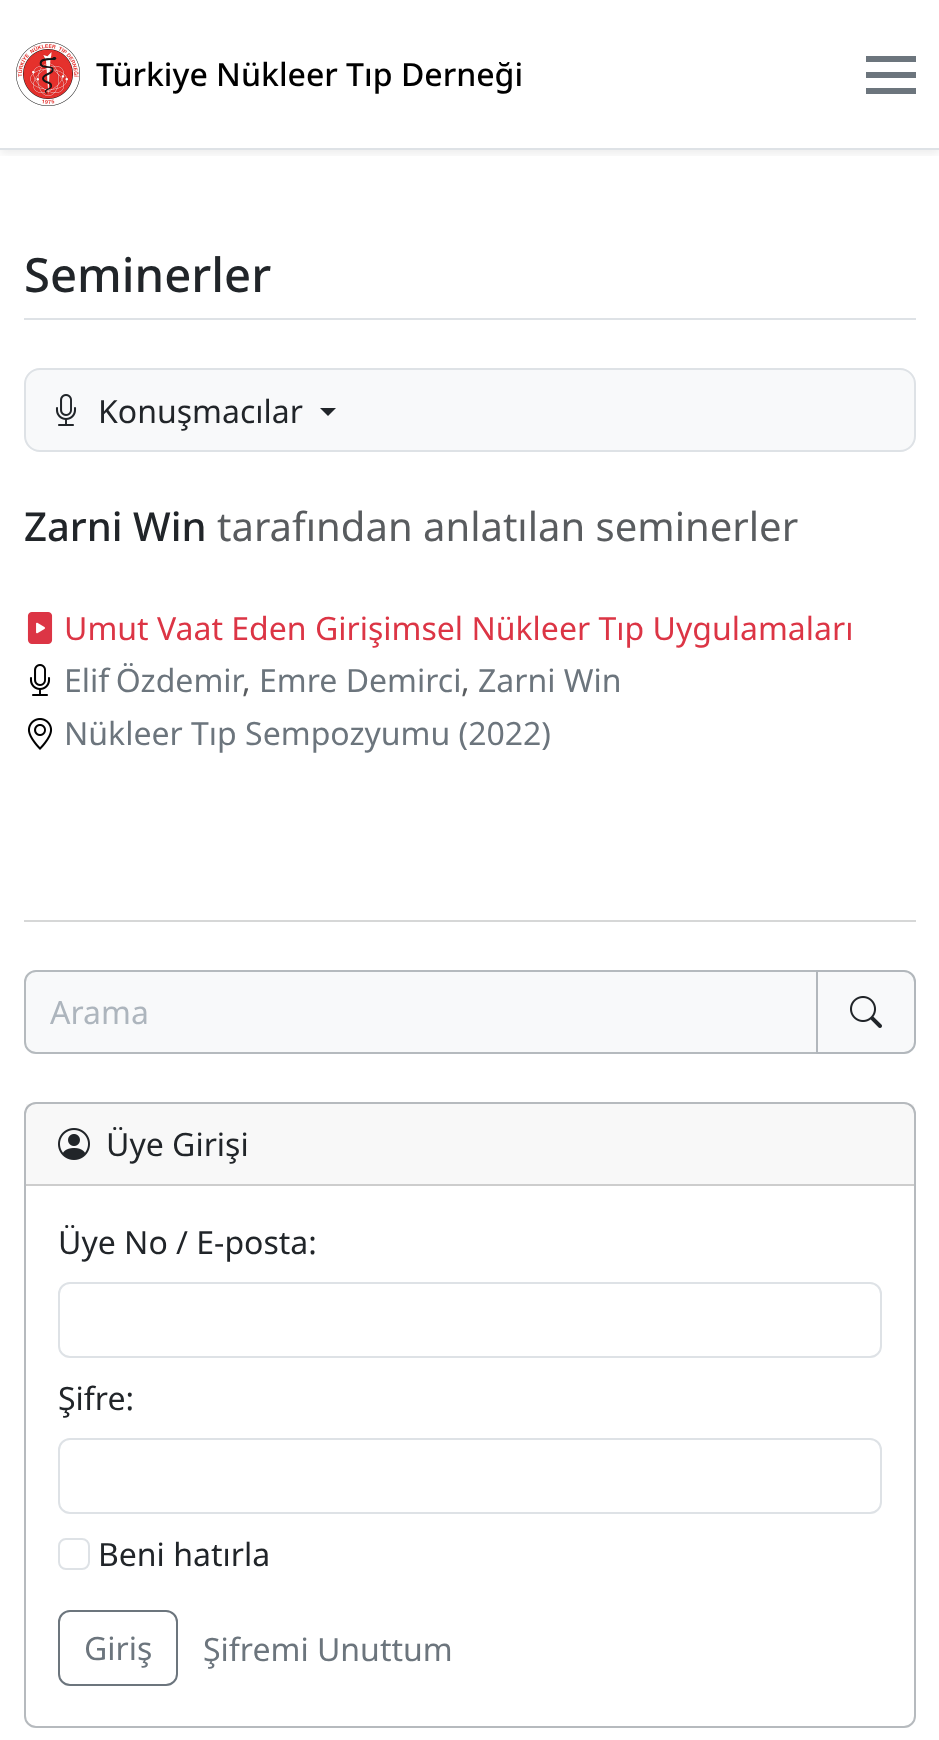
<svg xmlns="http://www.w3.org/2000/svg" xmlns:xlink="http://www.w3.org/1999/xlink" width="939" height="1740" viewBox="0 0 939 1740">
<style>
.cls-1{font:500 32px Noto Sans;fill:#000000}
.cls-2{font:500 47.25px Noto Sans;fill:#212529}
.cls-3{font:32px Noto Sans;fill:#212529}
.cls-4{font:500 40px Noto Sans;fill:#212529}
.cls-5{font:40px Noto Sans;fill:#595c5f}
.cls-6{font:32px Noto Sans;fill:#dc3545}
.cls-7{font:32px Noto Sans;fill:#6c757d}
.cls-8{font:32px Noto Sans;fill:#595c5f}
.cls-9{font:32px Noto Sans;fill:#adb5bd}
</style>
<defs>
<clipPath id="clip1"><rect x="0" y="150" width="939" height="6"/></clipPath>
</defs>
<rect width="100%" height="100%" fill="#ffffff"/>
<g clip-path="url(#clip1)">
<rect fill="#000000" fill-opacity="0.07" filter="blur(4px)" x="0" y="4" width="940" height="150"/>
</g>
<rect fill="#dee2e6" x="0" y="148" width="939" height="2"/>
<image xlink:href="image0.png" x="16" y="42" width="64" height="64"/>
<rect fill="#6c757d" x="866" y="56" width="50" height="6"/>
<rect fill="#6c757d" x="866" y="72" width="50" height="6"/>
<rect fill="#6c757d" x="866" y="88" width="50" height="6"/>
<rect fill="#dee2e6" x="24" y="318" width="892" height="2"/>
<rect fill="#f8f9fa" stroke="#dee2e6" stroke-width="2" x="25" y="369" width="890" height="82" rx="15"/>
<image xlink:href="image1.png" x="55" y="394" width="22" height="32"/>
<path fill="#212529" d="M320 408H336L328 416Z"/>
<image xlink:href="image2.png" x="27" y="612" width="26" height="32"/>
<image xlink:href="image3.png" x="29" y="664" width="22" height="32"/>
<image xlink:href="image4.png" x="27" y="718" width="26" height="32"/>
<rect fill="#d6d7d7" x="24" y="920" width="892" height="2"/>
<path fill="#f8f9fa" stroke="#b5babe" stroke-width="2" d="M36 971H817V1053H36C30 1053 25 1048 25 1042V982C25 976 30 971 36 971Z"/>
<path fill="#f8f9fa" d="M816 970H904C910.5 970 916 975.5 916 982V1042C916 1048.5 910.5 1054 904 1054H816Z"/>
<path fill="none" stroke="#6c757d" stroke-opacity="0.5" stroke-width="2" d="M817 971H904C910 971 915 976 915 982V1042C915 1048 910 1053 904 1053H817Z"/>
<image xlink:href="image5.png" x="850" y="996" width="32" height="32"/>
<rect fill="none" stroke="#b6babe" stroke-width="2" x="25" y="1103" width="890" height="624" rx="11"/>
<rect fill="#212529" fill-opacity="0.03" x="26" y="1104" width="888" height="80"/>
<rect fill="#cdcdcd" x="26" y="1184" width="888" height="2"/>
<image xlink:href="image6.png" x="58" y="1128" width="32" height="32"/>
<rect fill="none" stroke="#dee2e6" stroke-width="2" x="59" y="1283" width="822" height="74" rx="11"/>
<rect fill="none" stroke="#dee2e6" stroke-width="2" x="59" y="1439" width="822" height="74" rx="11"/>
<rect fill="none" stroke="#dee2e6" stroke-width="2" x="59" y="1539" width="30" height="30" rx="7"/>
<rect fill="none" stroke="#6c757d" stroke-width="2" x="59" y="1611" width="118" height="74" rx="11"/>
<text class="cls-1" x="96" y="86">Türkiye Nükleer Tıp Derneği</text>
<text class="cls-2" x="24" y="292">Seminerler</text>
<text class="cls-3" x="98" y="423">Konuşmacılar</text>
<text class="cls-4" x="24" y="541">Zarni Win</text>
<text class="cls-5" x="217" y="541">tarafından anlatılan seminerler</text>
<text class="cls-6" x="64" y="640">Umut Vaat Eden Girişimsel Nükleer Tıp Uygulamaları</text>
<text class="cls-7" x="64" y="692" word-spacing="-2">Elif Özdemir</text>
<text class="cls-8" x="242" y="692">,</text>
<text class="cls-7" x="259" y="692">Emre Demirci</text>
<text class="cls-8" x="461" y="692">,</text>
<text class="cls-7" x="478" y="692">Zarni Win</text>
<text class="cls-7" x="64" y="745">Nükleer Tıp Sempozyumu (2022)</text>
<text class="cls-9" x="50" y="1024">Arama</text>
<text class="cls-3" x="106" y="1156">Üye Girişi</text>
<text class="cls-3" x="58" y="1254">Üye No / E-posta:</text>
<text class="cls-3" x="58" y="1410">Şifre:</text>
<text class="cls-3" x="98" y="1566">Beni hatırla</text>
<text class="cls-7" x="84" y="1660">Giriş</text>
<text class="cls-7" x="203" y="1661">Şifremi Unuttum</text>
</svg>
